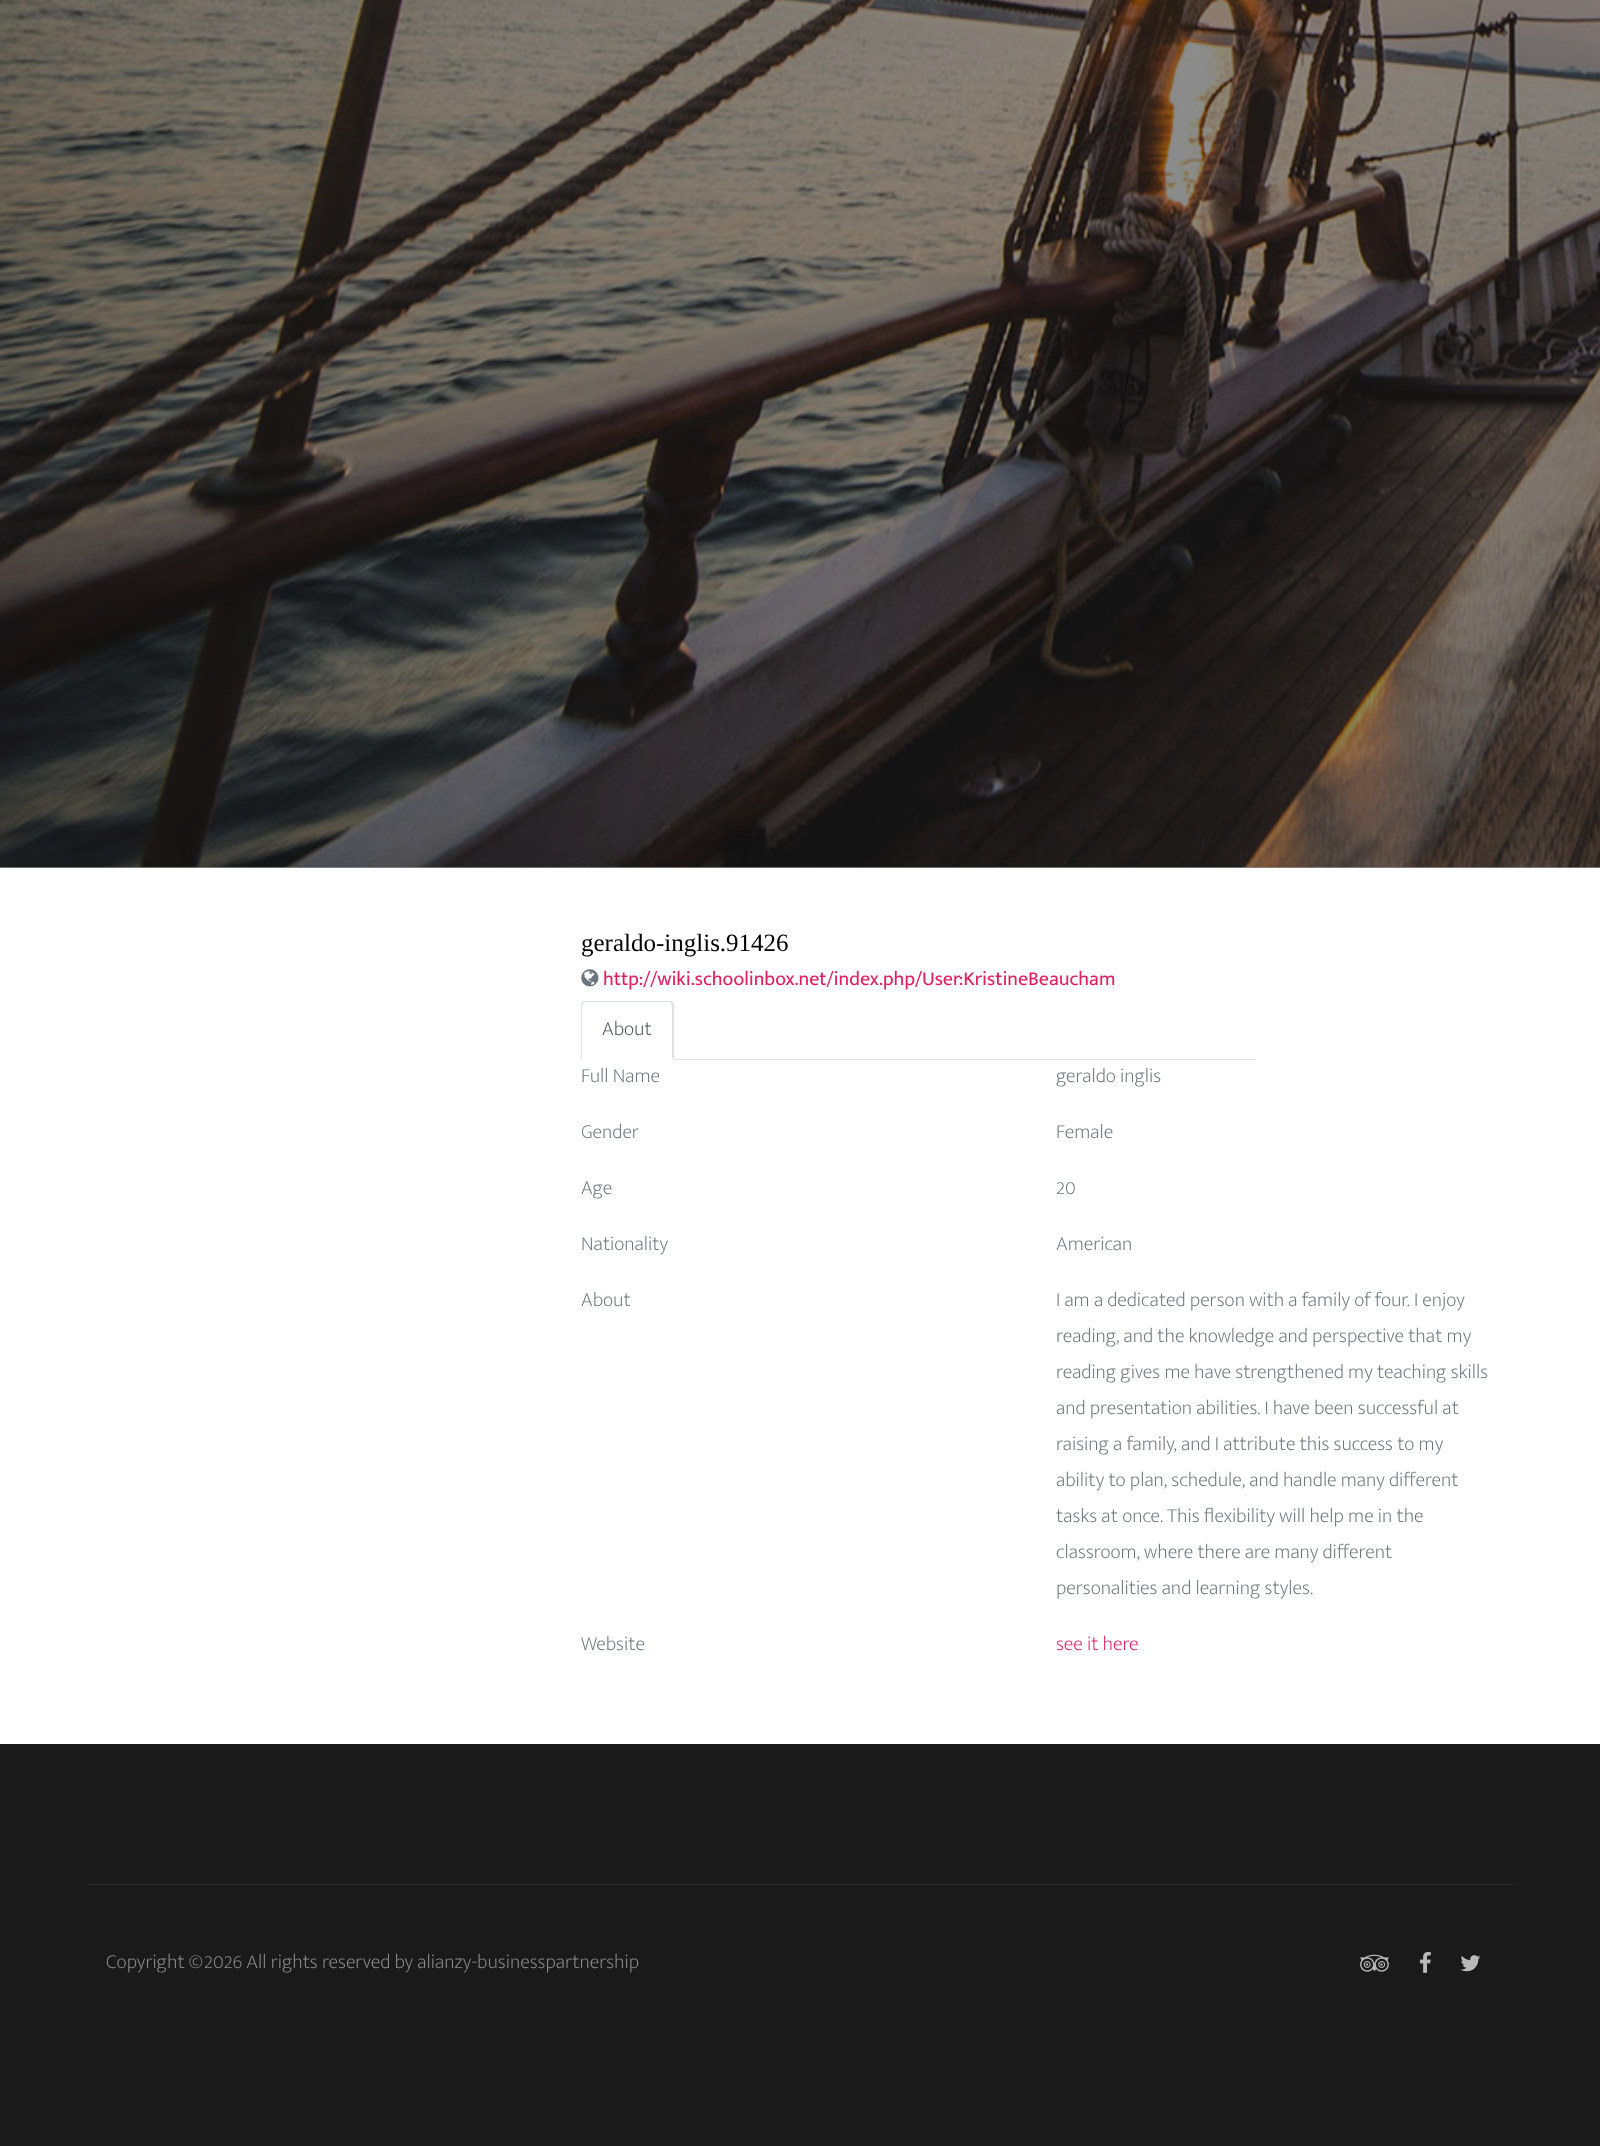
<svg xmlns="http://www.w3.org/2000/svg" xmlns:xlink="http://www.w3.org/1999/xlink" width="1600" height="2146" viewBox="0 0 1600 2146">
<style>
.cls-1{font:25px Liberation Serif;fill:#000000}
.cls-2{font:20px Mukta Mahee;fill:#e61c5d}
.cls-3{font:200 20px Mukta Mahee;fill:#495057}
.cls-4{font:200 20px Mukta Mahee;fill:#6c757d}
.cls-5{font:200 20px Mukta Mahee;fill:#e61c5d}
.cls-6{font:200 20px Mukta Mahee;fill:#8d8d8d}
</style>
<rect width="100%" height="100%" fill="#ffffff"/>
<rect fill="#8c8c8c" x="0" y="867" width="1600" height="1"/>
<image xlink:href="image0.png" x="0" y="0" width="1600" height="868"/>
<image xlink:href="image1.png" x="581" y="969" width="18" height="18"/>
<rect fill="#dee2e6" x="674" y="1059" width="582" height="1"/>
<path fill="#dee2e6" d="M586 1002L583 1003L582 1002L584 1001H671L673 1002L671 1004C671 1003 670 1002 669 1002Z"/>
<path fill="#dee2e6" d="M674 1004V1060L672 1058V1006L671 1004L673 1002Z"/>
<path fill="#ffffff" d="M674 1060L672 1058V1059H582L581 1060Z"/>
<path fill="#dee2e6" d="M581 1060V1004L582 1002L583 1003L582 1006V1059Z"/>
<rect fill="#1a1a1a" x="0" y="1744" width="1600" height="402"/>
<rect fill="#313131" x="88" y="1884" width="1425" height="1"/>
<image xlink:href="image2.png" x="1360" y="1954" width="29" height="18"/>
<image xlink:href="image3.png" x="1419" y="1952" width="12" height="21"/>
<image xlink:href="image4.png" x="1460" y="1955" width="21" height="17"/>
<text class="cls-1" x="581" y="951">geraldo-inglis.91426</text>
<text class="cls-2" x="603" y="985">http://wiki.schoolinbox.net/index.php/User:KristineBeaucham</text>
<text class="cls-3" x="602" y="1035">About</text>
<text class="cls-4" x="581" y="1082">Full Name</text>
<text class="cls-4" x="1056" y="1082">geraldo inglis</text>
<text class="cls-4" x="581" y="1138">Gender</text>
<text class="cls-4" x="1056" y="1138">Female</text>
<text class="cls-4" x="581" y="1194">Age</text>
<text class="cls-4" x="1056" y="1194">20</text>
<text class="cls-4" x="581" y="1250">Nationality</text>
<text class="cls-4" x="1056" y="1250">American</text>
<text class="cls-4" x="581" y="1306">About</text>
<text class="cls-4"><tspan x="1056" y="1306">I am a dedicated person with a family of four. I enjoy</tspan><tspan x="1056" y="1342">reading, and the knowledge and perspective that my</tspan><tspan x="1056" y="1378">reading gives me have strengthened my teaching skills</tspan><tspan x="1056" y="1414">and presentation abilities. I have been successful at</tspan><tspan x="1056" y="1450">raising a family, and I attribute this success to my</tspan><tspan x="1056" y="1486">ability to plan, schedule, and handle many different</tspan><tspan x="1056" y="1522">tasks at once. This flexibility will help me in the</tspan><tspan x="1056" y="1558">classroom, where there are many different</tspan><tspan x="1056" y="1594">personalities and learning styles.</tspan></text>
<text class="cls-4" x="581" y="1650">Website</text>
<text class="cls-5" x="1056" y="1650">see it here</text>
<text class="cls-6" x="106" y="1968">Copyright ©</text>
<text class="cls-6" x="204" y="1968">2026 All rights reserved by alianzy-businesspartnership</text>
</svg>
